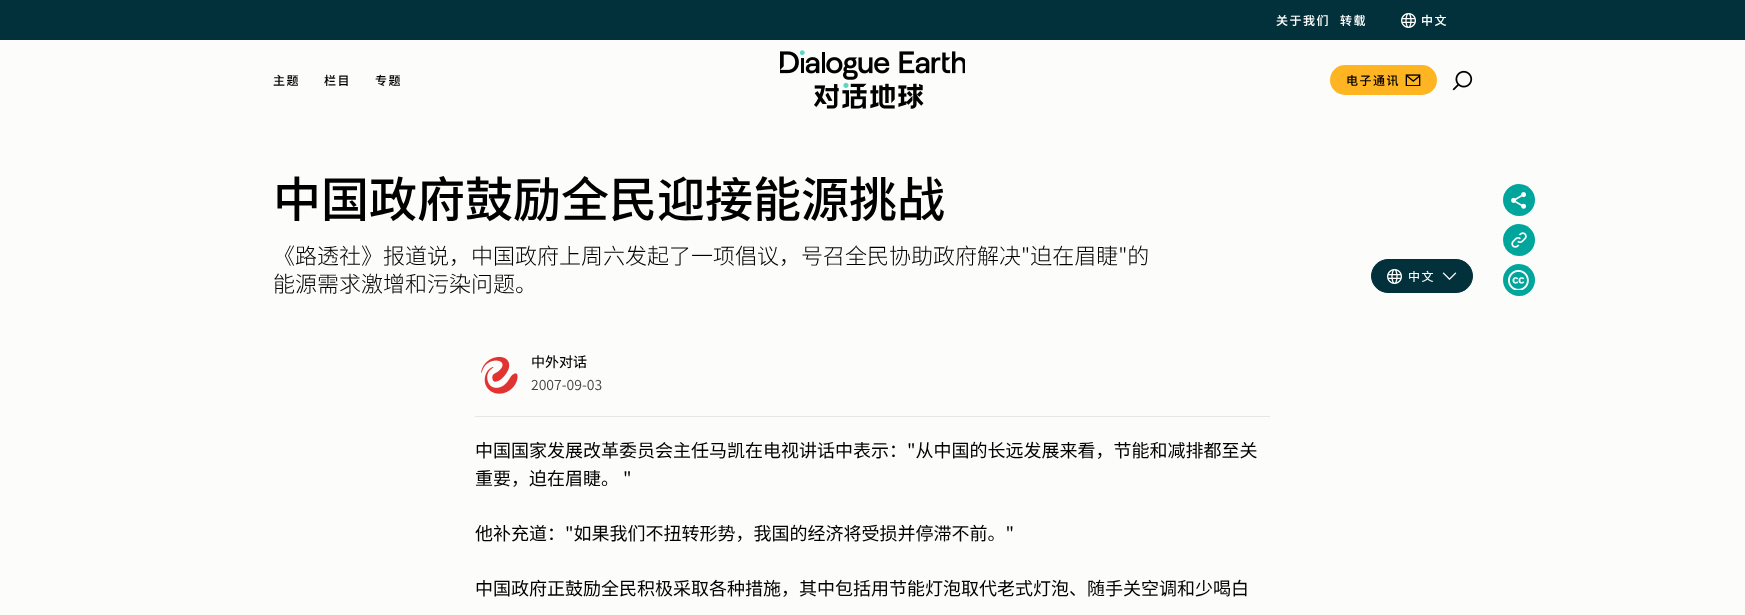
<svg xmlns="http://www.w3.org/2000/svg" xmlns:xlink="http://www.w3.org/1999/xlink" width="1745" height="615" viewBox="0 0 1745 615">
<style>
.cls-1{font:500 12px 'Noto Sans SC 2';letter-spacing:1.5px;fill:#ffffff}
.cls-2{font:500 12px 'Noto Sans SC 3';letter-spacing:1.5px;fill:#ffffff}
.cls-3{font:500 12px 'Noto Sans SC 2';letter-spacing:1.5px;fill:#000000}
.cls-4{font:500 48px Noto Sans SC;fill:#000000}
.cls-5{font:300 22px Noto Sans SC;fill:#000000}
.cls-6{font:12px 'Noto Sans SC 2';letter-spacing:1.5px;fill:#ffffff}
.cls-7{font:14px 'Noto Sans SC 2';fill:#000000}
.cls-8{font:300 14px 'Noto Sans SC 2';fill:#444444}
.cls-9{font:18px Noto Sans SC;fill:#000000}
</style>
<rect width="100%" height="100%" fill="#fcfcfb"/>
<rect fill="#03313b" x="0" y="0" width="1745" height="40"/>
<image xlink:href="image0.png" x="1401" y="13" width="15" height="15"/>
<image xlink:href="image1.png" x="780" y="50" width="185" height="59"/>
<rect fill="#ffb421" x="1330" y="65" width="107" height="30" rx="15"/>
<image xlink:href="image2.png" x="1405" y="74" width="16" height="12"/>
<image xlink:href="image3.png" x="1452" y="70" width="21" height="21"/>
<rect fill="#03313b" stroke="#03313b" x="1371.5" y="259.5" width="101" height="33" rx="16.5"/>
<image xlink:href="image0.png" x="1387" y="269" width="15" height="15"/>
<image xlink:href="image4.png" x="1442" y="272" width="15" height="8"/>
<circle fill="#00a69c" cx="1519" cy="200" r="16"/>
<image xlink:href="image5.png" x="1511" y="192" width="16" height="17"/>
<circle fill="#00a69c" cx="1519" cy="240" r="16"/>
<image xlink:href="image6.png" x="1511" y="232" width="16" height="16"/>
<circle fill="#00a69c" cx="1519" cy="280" r="16"/>
<image xlink:href="image7.png" x="1508" y="270" width="21" height="20"/>
<rect fill="#e6e6e5" x="475" y="416" width="795" height="1"/>
<image xlink:href="image8.png" x="481" y="356" width="37" height="38"/>
<text class="cls-1" x="1276" y="25">关于我们</text>
<text class="cls-1" x="1340" y="25">转载</text>
<text class="cls-2" x="1421" y="25">中文</text>
<text class="cls-3" x="273" y="85">主题</text>
<text class="cls-3" x="324" y="85">栏目</text>
<text class="cls-3" x="375" y="85">专题</text>
<text class="cls-3" x="1346" y="85">电子通讯</text>
<text class="cls-4" x="273" y="217">中国政府鼓励全民迎接能源挑战</text>
<text class="cls-5"><tspan x="273" y="264">《路透社》报道说，中国政府上周六发起了一项倡议，号召全民协助政府解决"迫在眉睫"的</tspan><tspan x="273" y="292">能源需求激增和污染问题。</tspan></text>
<text class="cls-6" x="1408" y="281">中文</text>
<text class="cls-7" x="531" y="367">中外对话</text>
<text class="cls-8" x="531" y="390">2007-09-03</text>
<text class="cls-9"><tspan x="475" y="457">中国国家发展改革委员会主任马凯在电视讲话中表示："从中国的长远发展来看，节能和减排都至关</tspan><tspan x="475" y="485">重要，迫在眉睫。 "</tspan></text>
<text class="cls-9" x="475" y="540">他补充道："如果我们不扭转形势，我国的经济将受损并停滞不前。"</text>
<text class="cls-9" x="475" y="595">中国政府正鼓励全民积极采取各种措施，其中包括用节能灯泡取代老式灯泡、随手关空调和少喝白</text>
</svg>
